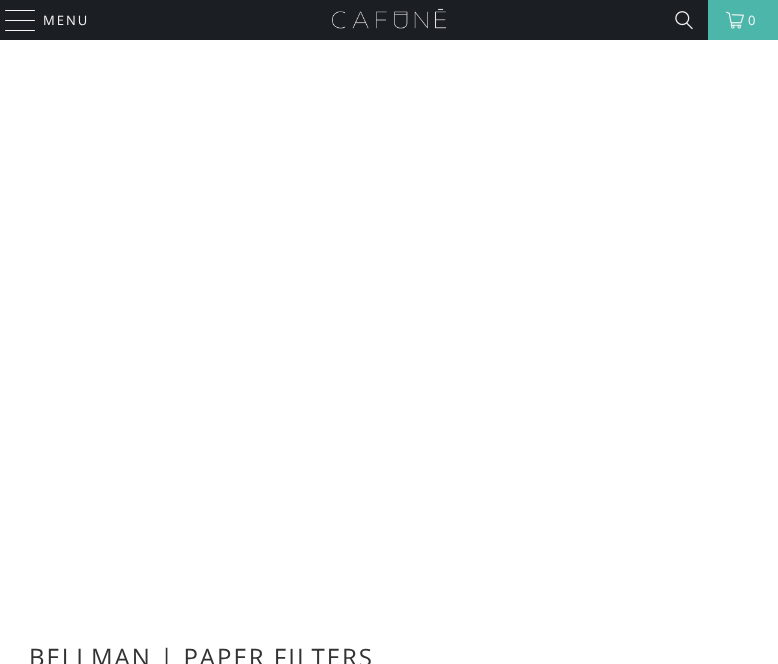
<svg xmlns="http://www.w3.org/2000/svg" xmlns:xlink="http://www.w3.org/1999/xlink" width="778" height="664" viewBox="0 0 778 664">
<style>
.cls-1{font:13px Open Sans;letter-spacing:2px;fill:#f4f4f4}
.cls-2{font:24px Open Sans;letter-spacing:2px;fill:#333333}
</style>
<rect width="100%" height="100%" fill="#ffffff"/>
<rect fill="#1b1f23" x="0" y="0" width="708" height="40"/>
<rect fill="#f4f4f4" x="5" y="10" width="30" height="1" rx="0.5"/>
<rect fill="#f4f4f4" x="5" y="20" width="30" height="1" rx="0.5"/>
<rect fill="#f4f4f4" x="5" y="30" width="30" height="1" rx="0.5"/>
<image xlink:href="image0.png" x="332" y="8" width="115" height="21"/>
<image xlink:href="image1.png" x="675" y="11" width="18" height="19"/>
<rect fill="#4bb6a9" x="708" y="0" width="70" height="40"/>
<image xlink:href="image2.png" x="726" y="11" width="18" height="18"/>
<text class="cls-1" x="43" y="25">MENU</text>
<text class="cls-1" x="748" y="25">0</text>
<text class="cls-2" x="29" y="666">BELLMAN | PAPER FILTERS</text>
</svg>
